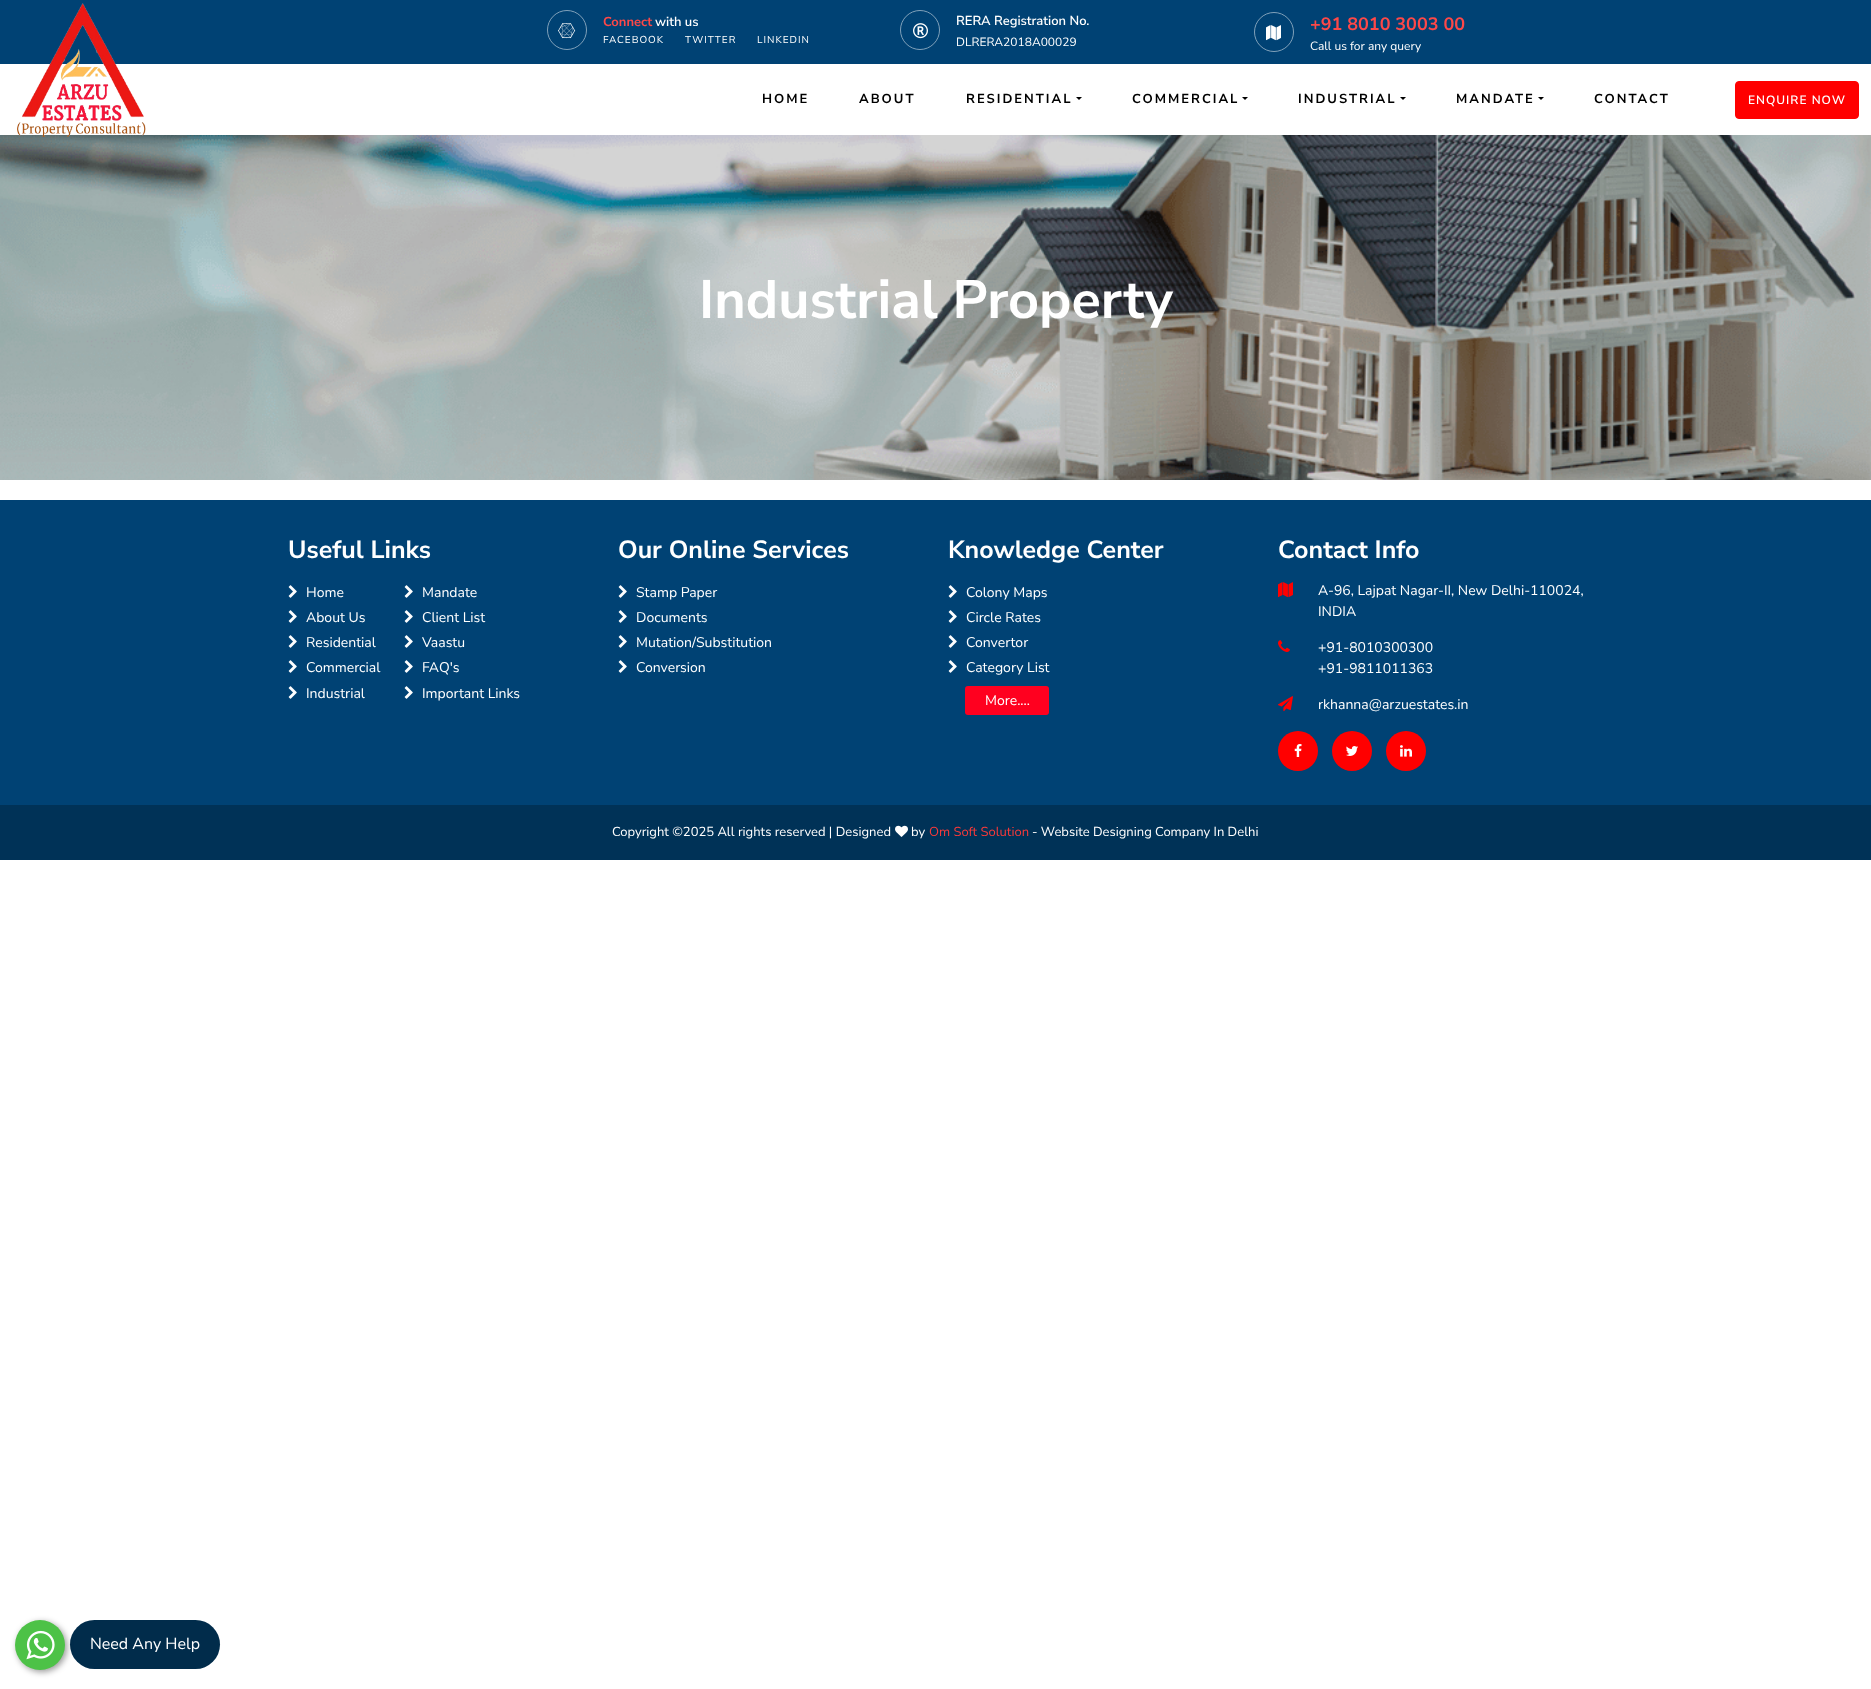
<svg xmlns="http://www.w3.org/2000/svg" xmlns:xlink="http://www.w3.org/1999/xlink" width="1871" height="1689" viewBox="0 0 1871 1689">
<style>
.cls-1{font:bold 13px Nunito Sans;fill:#fd4848}
.cls-2{font:600 13px Nunito Sans;fill:#ffffff}
.cls-3{font:10px Nunito Sans;letter-spacing:1px;fill:#ffffff}
.cls-4{font:12px Nunito Sans;fill:#ffffff}
.cls-5{font:bold 18px Nunito Sans;fill:#fd4848}
.cls-6{font:bold 13px Nunito Sans;letter-spacing:2px;fill:#000000}
.cls-7{font:600 12px Nunito Sans;letter-spacing:1px;fill:#ffffff}
.cls-8{font:bold 54px Nunito Sans;fill:#ffffff}
.cls-9{font:bold 25px Nunito Sans;fill:#ffffff}
.cls-10{font:14px Nunito Sans;fill:#ffffff}
.cls-11{font:13px Nunito Sans;fill:#ffffff}
.cls-12{font:13px Nunito Sans;fill:#f93a3a}
.cls-13{font:16px Nunito Sans;fill:#ffffff}
</style>
<rect width="100%" height="100%" fill="#ffffff"/>
<rect fill="#004274" x="0" y="0" width="1871" height="64"/>
<circle fill="none" stroke="#80a1ba" cx="567" cy="30" r="19.5"/>
<image xlink:href="image0.png" x="558" y="23" width="18" height="16"/>
<circle fill="none" stroke="#80a1ba" cx="920" cy="30" r="19.5"/>
<image xlink:href="image1.png" x="913" y="23" width="15" height="16"/>
<circle fill="none" stroke="#80a1ba" cx="1274" cy="32" r="19.5"/>
<image xlink:href="image2.png" x="1266" y="25" width="15" height="16"/>
<image xlink:href="image4.png" x="0" y="135" width="1871" height="345"/>
<image xlink:href="image3.png" x="17" y="3" width="129" height="134"/>
<path fill="#000000" d="M1076 97H1082L1079 100Z"/>
<path fill="#000000" d="M1242 97H1248L1245 100Z"/>
<path fill="#000000" d="M1400 97H1406L1403 100Z"/>
<path fill="#000000" d="M1538 97H1544L1541 100Z"/>
<rect fill="#ff0000" stroke="#ff0000" x="1735.5" y="81.5" width="123" height="37" rx="3.5"/>
<rect fill="#004274" x="0" y="500" width="1871" height="305"/>
<image xlink:href="image5.png" x="288" y="585" width="9" height="13"/>
<image xlink:href="image5.png" x="288" y="610" width="9" height="13"/>
<image xlink:href="image5.png" x="288" y="635" width="9" height="13"/>
<image xlink:href="image5.png" x="288" y="660" width="9" height="13"/>
<image xlink:href="image5.png" x="288" y="686" width="9" height="13"/>
<image xlink:href="image5.png" x="404" y="585" width="9" height="13"/>
<image xlink:href="image5.png" x="404" y="610" width="9" height="13"/>
<image xlink:href="image5.png" x="404" y="635" width="9" height="13"/>
<image xlink:href="image5.png" x="404" y="660" width="9" height="13"/>
<image xlink:href="image5.png" x="404" y="686" width="9" height="13"/>
<image xlink:href="image5.png" x="618" y="585" width="9" height="13"/>
<image xlink:href="image5.png" x="618" y="610" width="9" height="13"/>
<image xlink:href="image5.png" x="618" y="635" width="9" height="13"/>
<image xlink:href="image5.png" x="618" y="660" width="9" height="13"/>
<image xlink:href="image5.png" x="948" y="585" width="9" height="13"/>
<image xlink:href="image5.png" x="948" y="610" width="9" height="13"/>
<image xlink:href="image5.png" x="948" y="635" width="9" height="13"/>
<image xlink:href="image5.png" x="948" y="660" width="9" height="13"/>
<rect fill="#ff001f" x="965" y="686" width="84" height="29" rx="3"/>
<image xlink:href="image6.png" x="1278" y="582" width="15" height="16"/>
<image xlink:href="image7.png" x="1278" y="640" width="12" height="12"/>
<image xlink:href="image8.png" x="1278" y="696" width="15" height="16"/>
<circle fill="#ff0000" cx="1298" cy="751" r="20"/>
<image xlink:href="image9.png" x="1294" y="744" width="8" height="13"/>
<circle fill="#ff0000" cx="1352" cy="751" r="20"/>
<image xlink:href="image10.png" x="1346" y="746" width="12" height="10"/>
<circle fill="#ff0000" cx="1406" cy="751" r="20"/>
<image xlink:href="image11.png" x="1400" y="745" width="12" height="12"/>
<rect fill="#003257" x="0" y="805" width="1871" height="55"/>
<image xlink:href="image12.png" x="895" y="825" width="13" height="12"/>
<rect fill="#012c4b" x="70" y="1620" width="150" height="49" rx="24.5"/>
<rect fill="#000000" fill-opacity="0.4" filter="blur(3px)" x="17" y="1622" width="50" height="50" rx="25"/>
<circle fill="#4dc247" cx="40" cy="1645" r="25"/>
<image xlink:href="image13.png" x="26" y="1630" width="29" height="30"/>
<text class="cls-1" x="603" y="26">Connect</text>
<text class="cls-2" x="655" y="26">with us</text>
<text class="cls-3" x="603" y="43">FACEBOOK</text>
<text class="cls-3" x="685" y="43">TWITTER</text>
<text class="cls-3" x="757" y="43">LINKEDIN</text>
<text class="cls-2" x="956" y="25">RERA Registration No.</text>
<text class="cls-4" x="956" y="46">DLRERA2018A00029</text>
<text class="cls-5" x="1310" y="30">+91 8010 3003 00</text>
<text class="cls-4" x="1310" y="50">Call us for any query</text>
<text class="cls-6" x="762" y="103">HOME</text>
<text class="cls-6" x="859" y="103">ABOUT</text>
<text class="cls-6" x="966" y="103">RESIDENTIAL</text>
<text class="cls-6" x="1132" y="103">COMMERCIAL</text>
<text class="cls-6" x="1298" y="103">INDUSTRIAL</text>
<text class="cls-6" x="1456" y="103">MANDATE</text>
<text class="cls-6" x="1594" y="103">CONTACT</text>
<text class="cls-7" x="1748" y="104">ENQUIRE NOW</text>
<text class="cls-8" x="699" y="318">Industrial Property</text>
<text class="cls-9" x="288" y="558">Useful Links</text>
<text class="cls-10"><tspan x="306" y="597">Home</tspan><tspan x="306" y="622">About Us</tspan><tspan x="306" y="647">Residential</tspan><tspan x="306" y="672">Commercial</tspan><tspan x="306" y="698">Industrial</tspan></text>
<text class="cls-10"><tspan x="422" y="597">Mandate</tspan><tspan x="422" y="622">Client List</tspan><tspan x="422" y="647">Vaastu</tspan><tspan x="422" y="672">FAQ's</tspan><tspan x="422" y="698">Important Links</tspan></text>
<text class="cls-9" x="618" y="558">Our Online Services</text>
<text class="cls-10"><tspan x="636" y="597">Stamp Paper</tspan><tspan x="636" y="622">Documents</tspan><tspan x="636" y="647">Mutation/Substitution</tspan><tspan x="636" y="672">Conversion</tspan></text>
<text class="cls-9" x="948" y="558">Knowledge Center</text>
<text class="cls-10"><tspan x="966" y="597">Colony Maps</tspan><tspan x="966" y="622">Circle Rates</tspan><tspan x="966" y="647">Convertor</tspan><tspan x="966" y="672">Category List</tspan></text>
<text class="cls-10" x="985" y="705">More....</text>
<text class="cls-9" x="1278" y="558">Contact Info</text>
<text class="cls-10"><tspan x="1318" y="595">A-96, Lajpat Nagar-II, New Delhi-110024,</tspan><tspan x="1318" y="616">INDIA</tspan></text>
<text class="cls-10"><tspan x="1318" y="652">+91-8010300300</tspan><tspan x="1318" y="673">+91-9811011363</tspan></text>
<text class="cls-10" x="1318" y="709">rkhanna@arzuestates.in</text>
<text class="cls-11" x="612" y="836">Copyright ©2025 All rights reserved | Designed</text>
<text class="cls-11" x="911" y="836">by</text>
<text class="cls-12" x="929" y="836">Om Soft Solution</text>
<text class="cls-11" x="1032" y="836">- Website Designing Company In Delhi</text>
<text class="cls-13" x="90" y="1649">Need Any Help</text>
</svg>
